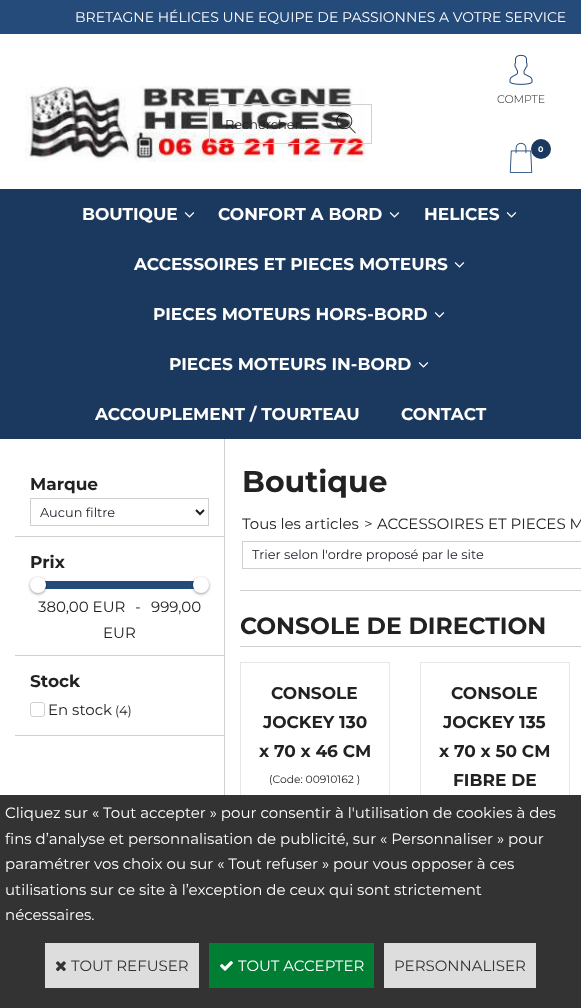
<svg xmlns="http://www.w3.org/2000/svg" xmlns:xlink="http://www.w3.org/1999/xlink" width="581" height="1008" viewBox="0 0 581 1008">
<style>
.cls-1{font:14px Montserrat;fill:#ffffff}
.cls-2{font:300 11px Montserrat;fill:#222222}
.cls-3{font:bold 8px Montserrat;fill:#ffffff}
.cls-4{font:12.9px Montserrat;fill:#1a1f26}
.cls-5{font:bold 17px Montserrat;fill:#ffffff}
.cls-6{font:bold 17px Montserrat;fill:#222222}
.cls-7{font:15px Montserrat;fill:#222222}
.cls-8{font:12.9px Montserrat;fill:#222222}
.cls-9{font:bold 30px Montserrat;fill:#222222}
.cls-10{font:bold 23.5px Montserrat;fill:#222222}
.cls-11{font:10.75px Montserrat;fill:#222222}
.cls-12{font:15px Montserrat;fill:#ffffff}
.cls-13{font:15px Montserrat;fill:#333333}
</style>
<rect width="100%" height="100%" fill="#ffffff"/>
<rect fill="#254b7b" x="0" y="0" width="581" height="34"/>
<image xlink:href="image0.png" x="25" y="86" width="340" height="76"/>
<image xlink:href="image1.png" x="509" y="54" width="24" height="31"/>
<image xlink:href="image2.png" x="509" y="142" width="24" height="31"/>
<circle fill="#1b395e" cx="541" cy="149" r="10"/>
<rect fill="#d0d0d0" x="209" y="104" width="163" height="1"/>
<rect fill="#d0d0d0" x="209" y="143" width="112" height="1"/>
<rect fill="#d0d0d0" x="209" y="104" width="1" height="40"/>
<rect fill="#d0d0d0" x="371" y="104" width="1" height="40"/>
<rect fill="#d0d0d0" x="321" y="143" width="51" height="1"/>
<image xlink:href="image3.png" x="336" y="113" width="20" height="21"/>
<rect fill="#1b395e" x="0" y="189" width="581" height="250"/>
<image xlink:href="image4.png" x="184" y="212" width="11" height="6"/>
<image xlink:href="image4.png" x="389" y="212" width="11" height="6"/>
<image xlink:href="image4.png" x="506" y="212" width="11" height="6"/>
<image xlink:href="image4.png" x="454" y="262" width="11" height="6"/>
<image xlink:href="image4.png" x="434" y="312" width="11" height="6"/>
<image xlink:href="image4.png" x="418" y="362" width="11" height="6"/>
<rect fill="#d0d0d0" x="224" y="439" width="1" height="356"/>
<rect fill="#d0d0d0" x="15" y="536" width="209" height="1"/>
<rect fill="none" stroke="#d0d0d0" x="30.5" y="498.5" width="178" height="27"/>
<path fill="none" stroke="#1a1f26" stroke-width="2" d="M196 510L200 514L204 510"/>
<rect fill="#d0d0d0" x="15" y="655" width="209" height="1"/>
<rect fill="#254b7b" x="38" y="581" width="163" height="8"/>
<rect fill="#000000" fill-opacity="0.4" filter="blur(1.5px)" x="30" y="578" width="16" height="16" rx="8"/>
<circle fill="#ffffff" cx="38" cy="585" r="8"/>
<rect fill="#000000" fill-opacity="0.4" filter="blur(1.5px)" x="193" y="578" width="16" height="16" rx="8"/>
<circle fill="#ffffff" cx="201" cy="585" r="8"/>
<rect fill="#d0d0d0" x="15" y="735" width="209" height="1"/>
<rect fill="none" stroke="#d0d0d0" x="30.5" y="702.5" width="14" height="14" rx="2.5"/>
<rect fill="#d0d0d0" x="240" y="590" width="341" height="1"/>
<rect fill="none" stroke="#d0d0d0" x="242.5" y="541.5" width="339" height="27"/>
<rect fill="#d0d0d0" x="240" y="646" width="341" height="1"/>
<rect fill="none" stroke="#e6e6e6" x="240.5" y="662.5" width="149" height="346"/>
<rect fill="none" stroke="#e6e6e6" x="420.5" y="662.5" width="149" height="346"/>
<rect fill="#333333" x="0" y="795" width="581" height="213"/>
<rect fill="#dddddd" x="45" y="943" width="154" height="45"/>
<image xlink:href="image5.png" x="56" y="961" width="10" height="11"/>
<rect fill="#007e33" x="209" y="943" width="165" height="45"/>
<image xlink:href="image6.png" x="220" y="961" width="13" height="10"/>
<rect fill="#dddddd" x="384" y="943" width="152" height="45"/>
<text class="cls-1" x="75" y="22">BRETAGNE HÉLICES UNE EQUIPE DE PASSIONNES A VOTRE SERVICE</text>
<text class="cls-2" x="497" y="103">COMPTE</text>
<text class="cls-3" x="538" y="152">0</text>
<text class="cls-4" x="225" y="129">Rechercher...</text>
<text class="cls-5" x="82" y="220">BOUTIQUE</text>
<text class="cls-5" x="218" y="220">CONFORT A BORD</text>
<text class="cls-5" x="424" y="220">HELICES</text>
<text class="cls-5" x="134" y="270">ACCESSOIRES ET PIECES MOTEURS</text>
<text class="cls-5" x="153" y="320">PIECES MOTEURS HORS-BORD</text>
<text class="cls-5" x="169" y="370">PIECES MOTEURS IN-BORD</text>
<text class="cls-5" x="95" y="420">ACCOUPLEMENT / TOURTEAU</text>
<text class="cls-5" x="401" y="420">CONTACT</text>
<text class="cls-6" x="30" y="490">Marque</text>
<text class="cls-4" x="40" y="517">Aucun filtre</text>
<text class="cls-6" x="30" y="568">Prix</text>
<text class="cls-7" x="38" y="612">380,00 EUR</text>
<text class="cls-7" x="135" y="612">-</text>
<text class="cls-7" x="151" y="612">999,00</text>
<text class="cls-7" x="103" y="638">EUR</text>
<text class="cls-6" x="30" y="687">Stock</text>
<text class="cls-7" x="48" y="715">En stock</text>
<text class="cls-8" x="115" y="715">(4)</text>
<text class="cls-9" x="242" y="492">Boutique</text>
<text class="cls-7" x="242" y="529">Tous les articles</text>
<text class="cls-7" x="364" y="529">&gt;</text>
<text class="cls-7" x="377" y="529">ACCESSOIRES ET PIECES M</text>
<text class="cls-4" x="252" y="559">Trier selon l'ordre proposé par le site</text>
<text class="cls-10" x="240" y="634">CONSOLE DE DIRECTION</text>
<text class="cls-6" x="271" y="699">CONSOLE</text>
<text class="cls-6" x="263" y="728">JOCKEY 130</text>
<text class="cls-6" x="259" y="757">x 70 x 46 CM</text>
<text class="cls-11" x="269" y="783">(Code: 00910162 )</text>
<text class="cls-6" x="451" y="699">CONSOLE</text>
<text class="cls-6" x="443" y="728">JOCKEY 135</text>
<text class="cls-6" x="439" y="757">x 70 x 50 CM</text>
<text class="cls-6" x="453" y="786">FIBRE DE</text>
<text class="cls-12"><tspan x="5" y="818">Cliquez sur « Tout accepter » pour consentir à l'utilisation de cookies à des</tspan><tspan x="5" y="844">fins d’analyse et personnalisation de publicité, sur « Personnaliser » pour</tspan><tspan x="5" y="869">paramétrer vos choix ou sur « Tout refuser » pour vous opposer à ces</tspan><tspan x="5" y="895">utilisations sur ce site à l’exception de ceux qui sont strictement</tspan><tspan x="5" y="920">nécessaires.</tspan></text>
<text class="cls-13" x="71" y="971">TOUT REFUSER</text>
<text class="cls-12" x="238" y="971">TOUT ACCEPTER</text>
<text class="cls-13" x="394" y="971">PERSONNALISER</text>
</svg>
